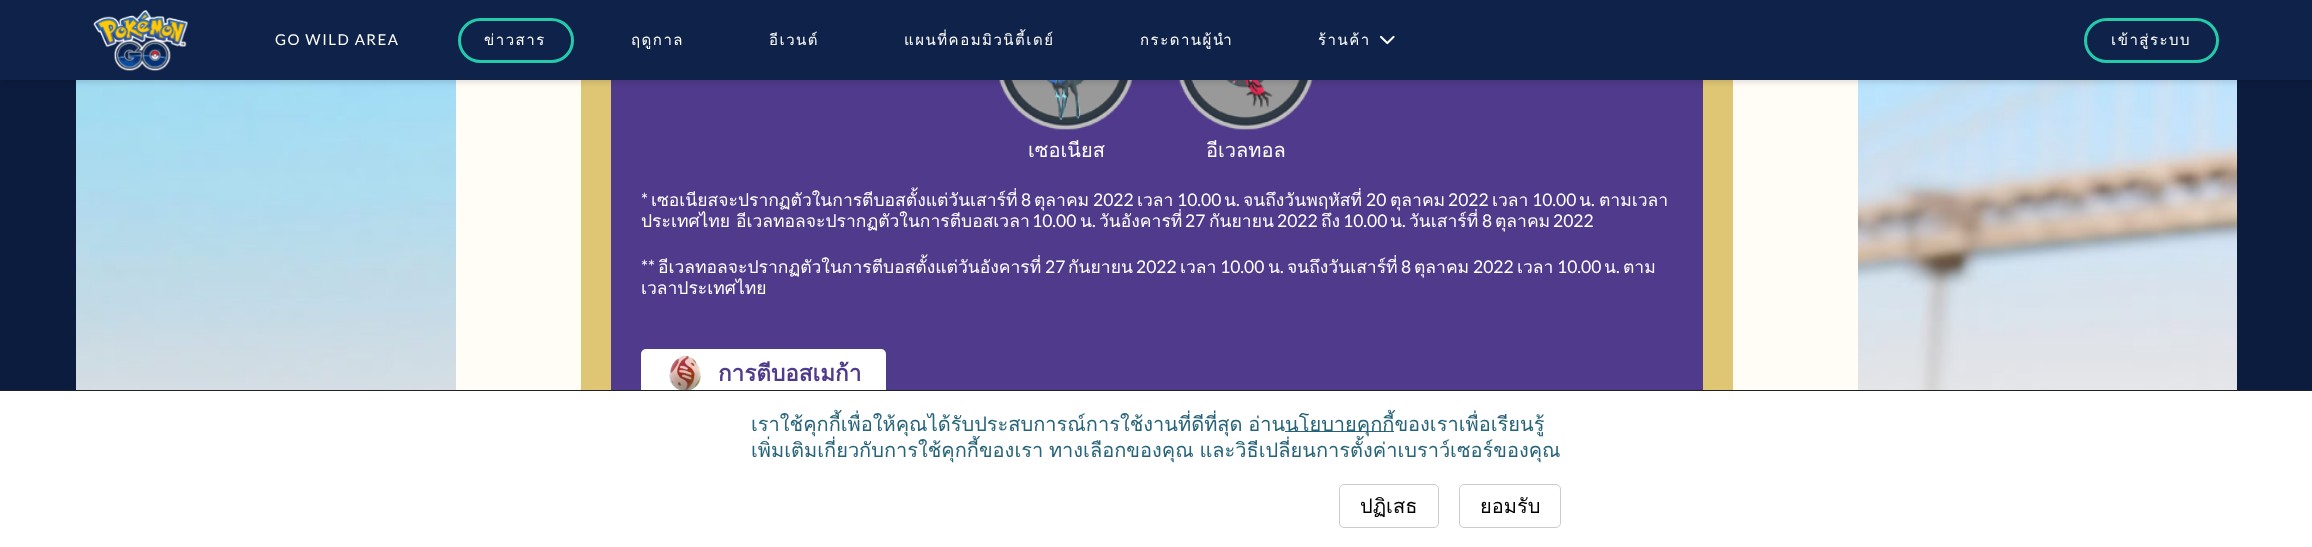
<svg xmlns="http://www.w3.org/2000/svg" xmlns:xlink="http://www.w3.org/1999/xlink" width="2312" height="547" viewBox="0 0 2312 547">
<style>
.cls-1{font:15px Lato;letter-spacing:1.5px;fill:#ffffff}
.cls-2{font:15px Loma;letter-spacing:1.5px;fill:#ffffff}
.cls-3{font:20px Loma;fill:#ffffff}
.cls-4{font:17.5px Lato;fill:#ffffff}
.cls-5{font:17.5px Loma;fill:#ffffff}
.cls-6{font:bold 22.5px Loma;fill:#503a8c}
.cls-7{font:20px Loma;fill:#266378}
.cls-8{font:20px Loma;fill:#000000}
</style>
<rect width="100%" height="100%" fill="#0c1c3e"/>
<image xlink:href="image2.png" x="76" y="80" width="2161" height="310"/>
<rect fill="#fffdf5" x="456" y="80" width="1402" height="310"/>
<rect fill="#dfc674" x="581" y="80" width="1152" height="310"/>
<rect fill="#503a8c" x="611" y="80" width="1092" height="310"/>
<image xlink:href="image3.png" x="999" y="80" width="134" height="50"/>
<image xlink:href="image4.png" x="1179" y="80" width="134" height="50"/>
<rect fill="#000000" fill-opacity="0.1" filter="blur(2.5px)" x="0" y="3" width="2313" height="80"/>
<rect fill="#0f224a" x="0" y="0" width="2312" height="80"/>
<image xlink:href="image0.png" x="93" y="10" width="95" height="61"/>
<rect fill="none" stroke="#24cbaa" stroke-width="3" x="459.5" y="19.5" width="113" height="42" rx="21"/>
<image xlink:href="image1.png" x="1380" y="35" width="15" height="10"/>
<rect fill="none" stroke="#24cbaa" stroke-width="3" x="2085.5" y="19.5" width="132" height="42" rx="21"/>
<rect fill="#ffffff" x="641" y="349" width="245" height="47" rx="5"/>
<image xlink:href="image5.png" x="669" y="355" width="32" height="35"/>
<rect fill="#ffffff" x="0" y="391" width="2312" height="156"/>
<rect fill="#212121" x="0" y="390" width="2312" height="1"/>
<rect fill="#266378" x="1285" y="431" width="109" height="1"/>
<rect fill="none" stroke="#cccccc" x="1339.5" y="484.5" width="99" height="43" rx="4.5"/>
<rect fill="none" stroke="#cccccc" x="1459.5" y="484.5" width="101" height="43" rx="4.5"/>
<text class="cls-1" x="275" y="45">GO WILD AREA</text>
<text class="cls-2" x="484" y="45">ข่าวสาร</text>
<text class="cls-2" x="631" y="45">ฤดูกาล</text>
<text class="cls-2" x="769" y="45">อีเวนต์</text>
<text class="cls-2" x="904" y="45">แผนที่คอมมิวนิตี้เดย์</text>
<text class="cls-2" x="1140" y="45">กระดานผู้นำ</text>
<text class="cls-2" x="1318" y="45">ร้านค้า</text>
<text class="cls-2" x="2111" y="45">เข้าสู่ระบบ</text>
<text class="cls-3" x="1028" y="157">เซอเนียส</text>
<text class="cls-3" x="1206" y="157">อีเวลทอล</text>
<text class="cls-4" x="641" y="206">*</text>
<text class="cls-5" x="651" y="206">เซอเนียสจะปรากฏตัวในการตีบอสตั้งแต่วันเสาร์ที่</text>
<text class="cls-4" x="1021" y="206">8</text>
<text class="cls-5" x="1034" y="206">ตุลาคม</text>
<text class="cls-4" x="1093" y="206">2022</text>
<text class="cls-5" x="1137" y="206">เวลา</text>
<text class="cls-4" x="1177" y="206">10.00</text>
<text class="cls-5" x="1224" y="206">น</text>
<text class="cls-4" x="1236" y="206">.</text>
<text class="cls-5" x="1243" y="206">จนถึงวันพฤหัสที่</text>
<text class="cls-4" x="1366" y="206">20</text>
<text class="cls-5" x="1390" y="206">ตุลาคม</text>
<text class="cls-4" x="1448" y="206">2022</text>
<text class="cls-5" x="1492" y="206">เวลา</text>
<text class="cls-4" x="1532" y="206">10.00</text>
<text class="cls-5" x="1579" y="206">น</text>
<text class="cls-4" x="1591" y="206">.</text>
<text class="cls-5" x="1599" y="206">ตามเวลา</text>
<text class="cls-5" x="641" y="227">ประเทศไทย อีเวลทอลจะปรากฏตัวในการตีบอสเวลา</text>
<text class="cls-4" x="1032" y="227">10.00</text>
<text class="cls-5" x="1080" y="227">น</text>
<text class="cls-4" x="1185" y="227">27</text>
<text class="cls-5" x="1209" y="227">กันยายน</text>
<text class="cls-4" x="1277" y="227">2022</text>
<text class="cls-5" x="1321" y="227">ถึง</text>
<text class="cls-4" x="1343" y="227">10.00</text>
<text class="cls-5" x="1390" y="227">น</text>
<text class="cls-4" x="1482" y="227">8</text>
<text class="cls-5" x="1495" y="227">ตุลาคม</text>
<text class="cls-4" x="1553" y="227">2022</text>
<text class="cls-4" x="1092" y="227">.</text>
<text class="cls-5" x="1099" y="227">วันอังคารที่</text>
<text class="cls-4" x="1402" y="227">.</text>
<text class="cls-5" x="1409" y="227">วันเสาร์ที่</text>
<text class="cls-4" x="641" y="273">**</text>
<text class="cls-5" x="658" y="273">อีเวลทอลจะปรากฏตัวในการตีบอสตั้งแต่วันอังคารที่</text>
<text class="cls-4" x="1045" y="273">27</text>
<text class="cls-5" x="1068" y="273">กันยายน</text>
<text class="cls-4" x="1136" y="273">2022</text>
<text class="cls-5" x="1180" y="273">เวลา</text>
<text class="cls-4" x="1220" y="273">10.00</text>
<text class="cls-5" x="1268" y="273">น</text>
<text class="cls-4" x="1280" y="273">.</text>
<text class="cls-5" x="1287" y="273">จนถึงวันเสาร์ที่</text>
<text class="cls-4" x="1401" y="273">8</text>
<text class="cls-5" x="1414" y="273">ตุลาคม</text>
<text class="cls-4" x="1473" y="273">2022</text>
<text class="cls-5" x="1517" y="273">เวลา</text>
<text class="cls-4" x="1557" y="273">10.00</text>
<text class="cls-5" x="1604" y="273">น</text>
<text class="cls-4" x="1616" y="273">.</text>
<text class="cls-5" x="1623" y="273">ตาม</text>
<text class="cls-5" x="641" y="294">เวลาประเทศไทย</text>
<text class="cls-6" x="718" y="381">การตีบอสเมก้า</text>
<text class="cls-7" x="751" y="431" word-spacing="-1">เราใช้คุกกี้เพื่อให้คุณได้รับประสบการณ์การใช้งานที่ดีที่สุด อ่าน</text>
<text class="cls-7" x="1285" y="431">นโยบายคุกกี้ของเราเพื่อเรียนรู้</text>
<text class="cls-7" x="751" y="457" word-spacing="-1">เพิ่มเติมเกี่ยวกับการใช้คุกกี้ของเรา ทางเลือกของคุณ และวิธีเปลี่ยนการตั้งค่าเบราว์เซอร์ของคุณ</text>
<text class="cls-8" x="1360" y="513">ปฏิเสธ</text>
<text class="cls-8" x="1480" y="513">ยอมรับ</text>
</svg>
